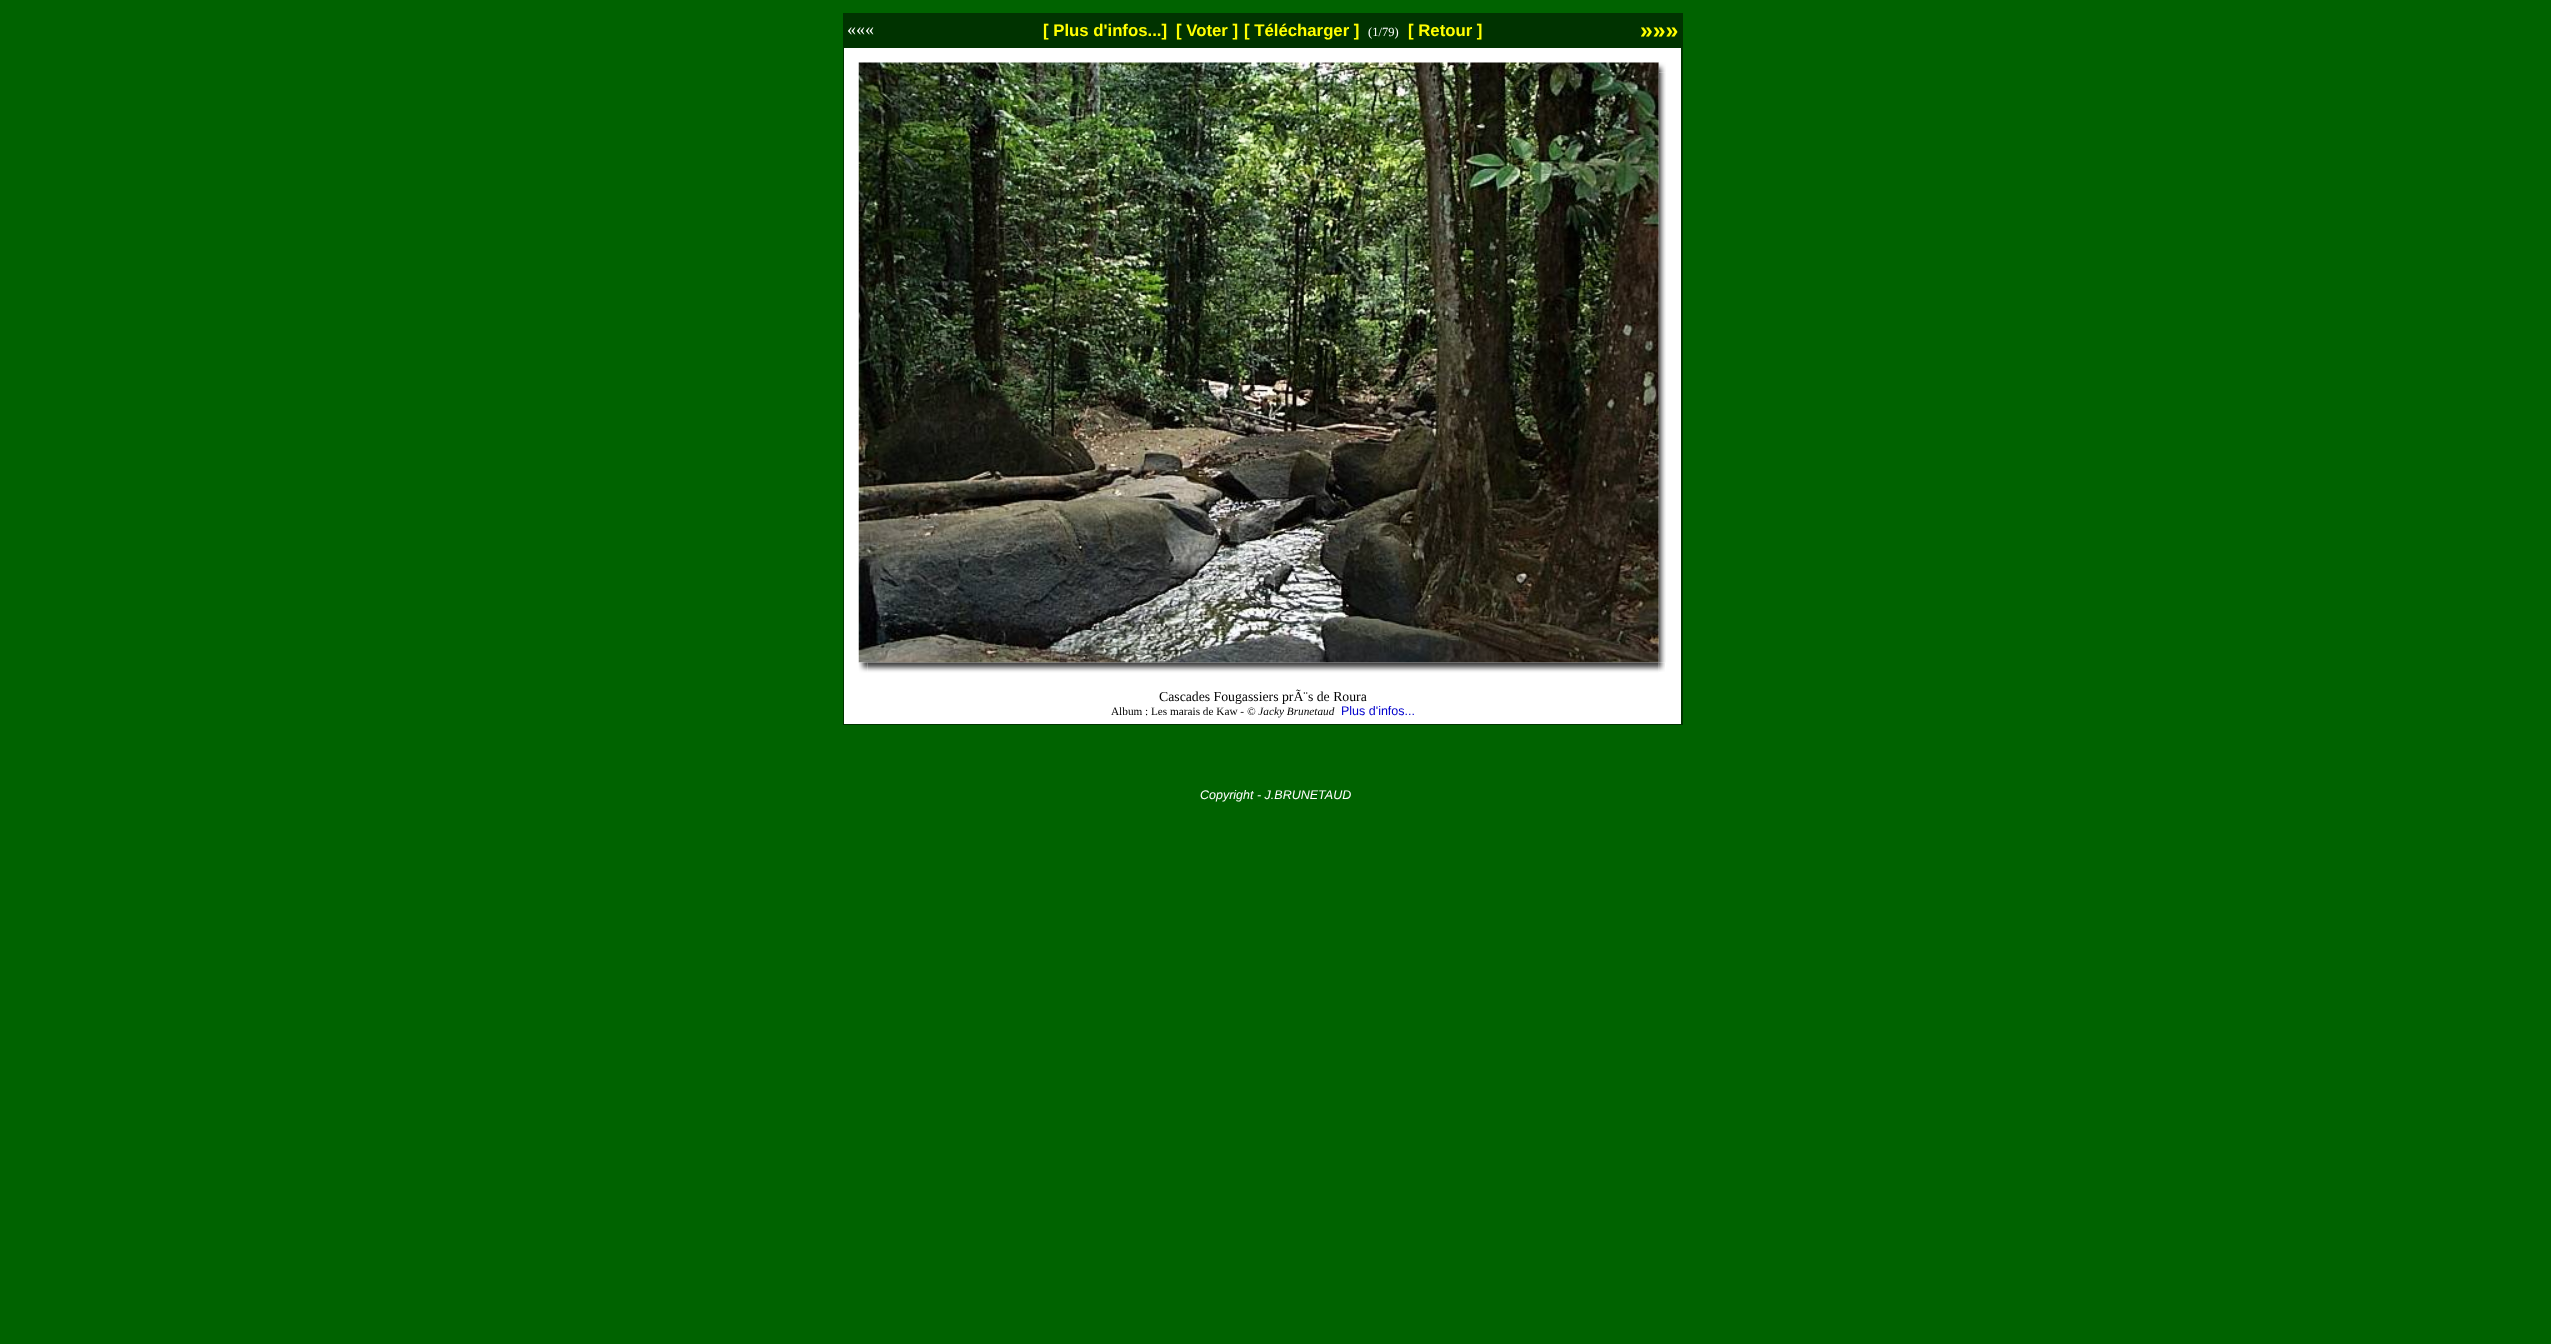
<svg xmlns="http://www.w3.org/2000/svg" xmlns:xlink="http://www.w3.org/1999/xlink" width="2551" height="1344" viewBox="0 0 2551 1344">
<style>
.cls-1{font:18px Liberation Serif;fill:#ffffff}
.cls-2{font:bold 16.75px Liberation Sans;fill:#ffff00}
.cls-3{font:12.5px Liberation Serif;fill:#ffffff}
.cls-4{font:bold 23px Liberation Sans;fill:#ffff00}
.cls-5{font:13.75px Liberation Serif;fill:#000000}
.cls-6{font:11.25px Liberation Serif;fill:#000000}
.cls-7{font:italic 11.25px Liberation Serif;fill:#000000}
.cls-8{font:12.5px Liberation Sans;fill:#0000cc}
.cls-9{font:italic 12.5px Liberation Sans;fill:#ffffff}
</style>
<rect width="100%" height="100%" fill="#006300"/>
<rect fill="#003300" x="843" y="13" width="840" height="712"/>
<rect fill="#ffffff" x="844" y="48" width="837" height="676"/>
<image xlink:href="image0.png" x="858" y="62" width="801" height="601"/>
<image xlink:href="image1.png" x="1658" y="62" width="8" height="11"/>
<image xlink:href="image2.png" x="1658" y="72" width="8" height="591"/>
<image xlink:href="image3.png" x="858" y="662" width="10" height="11"/>
<image xlink:href="image4.png" x="867" y="662" width="792" height="11"/>
<image xlink:href="image5.png" x="1659" y="662" width="6" height="10"/>
<text class="cls-1" x="847" y="35">«««</text>
<text class="cls-2" x="1043" y="36">[ Plus d'infos...]</text>
<text class="cls-2" x="1176" y="36">[ Voter ]</text>
<text class="cls-2" x="1244" y="36">[ Télécharger ]</text>
<text class="cls-3" x="1368" y="36">(1/79)</text>
<text class="cls-2" x="1408" y="36">[ Retour ]</text>
<text class="cls-4" x="1640" y="38">»»»</text>
<text class="cls-5" x="1159" y="701">Cascades Fougassiers prÃ¨s de Roura</text>
<text class="cls-6" x="1111" y="715">Album : Les marais de Kaw -</text>
<text class="cls-7" x="1247" y="715">© Jacky Brunetaud</text>
<text class="cls-8" x="1341" y="715">Plus d'infos...</text>
<text class="cls-9" x="1200" y="799">Copyright - J.BRUNETAUD</text>
</svg>
